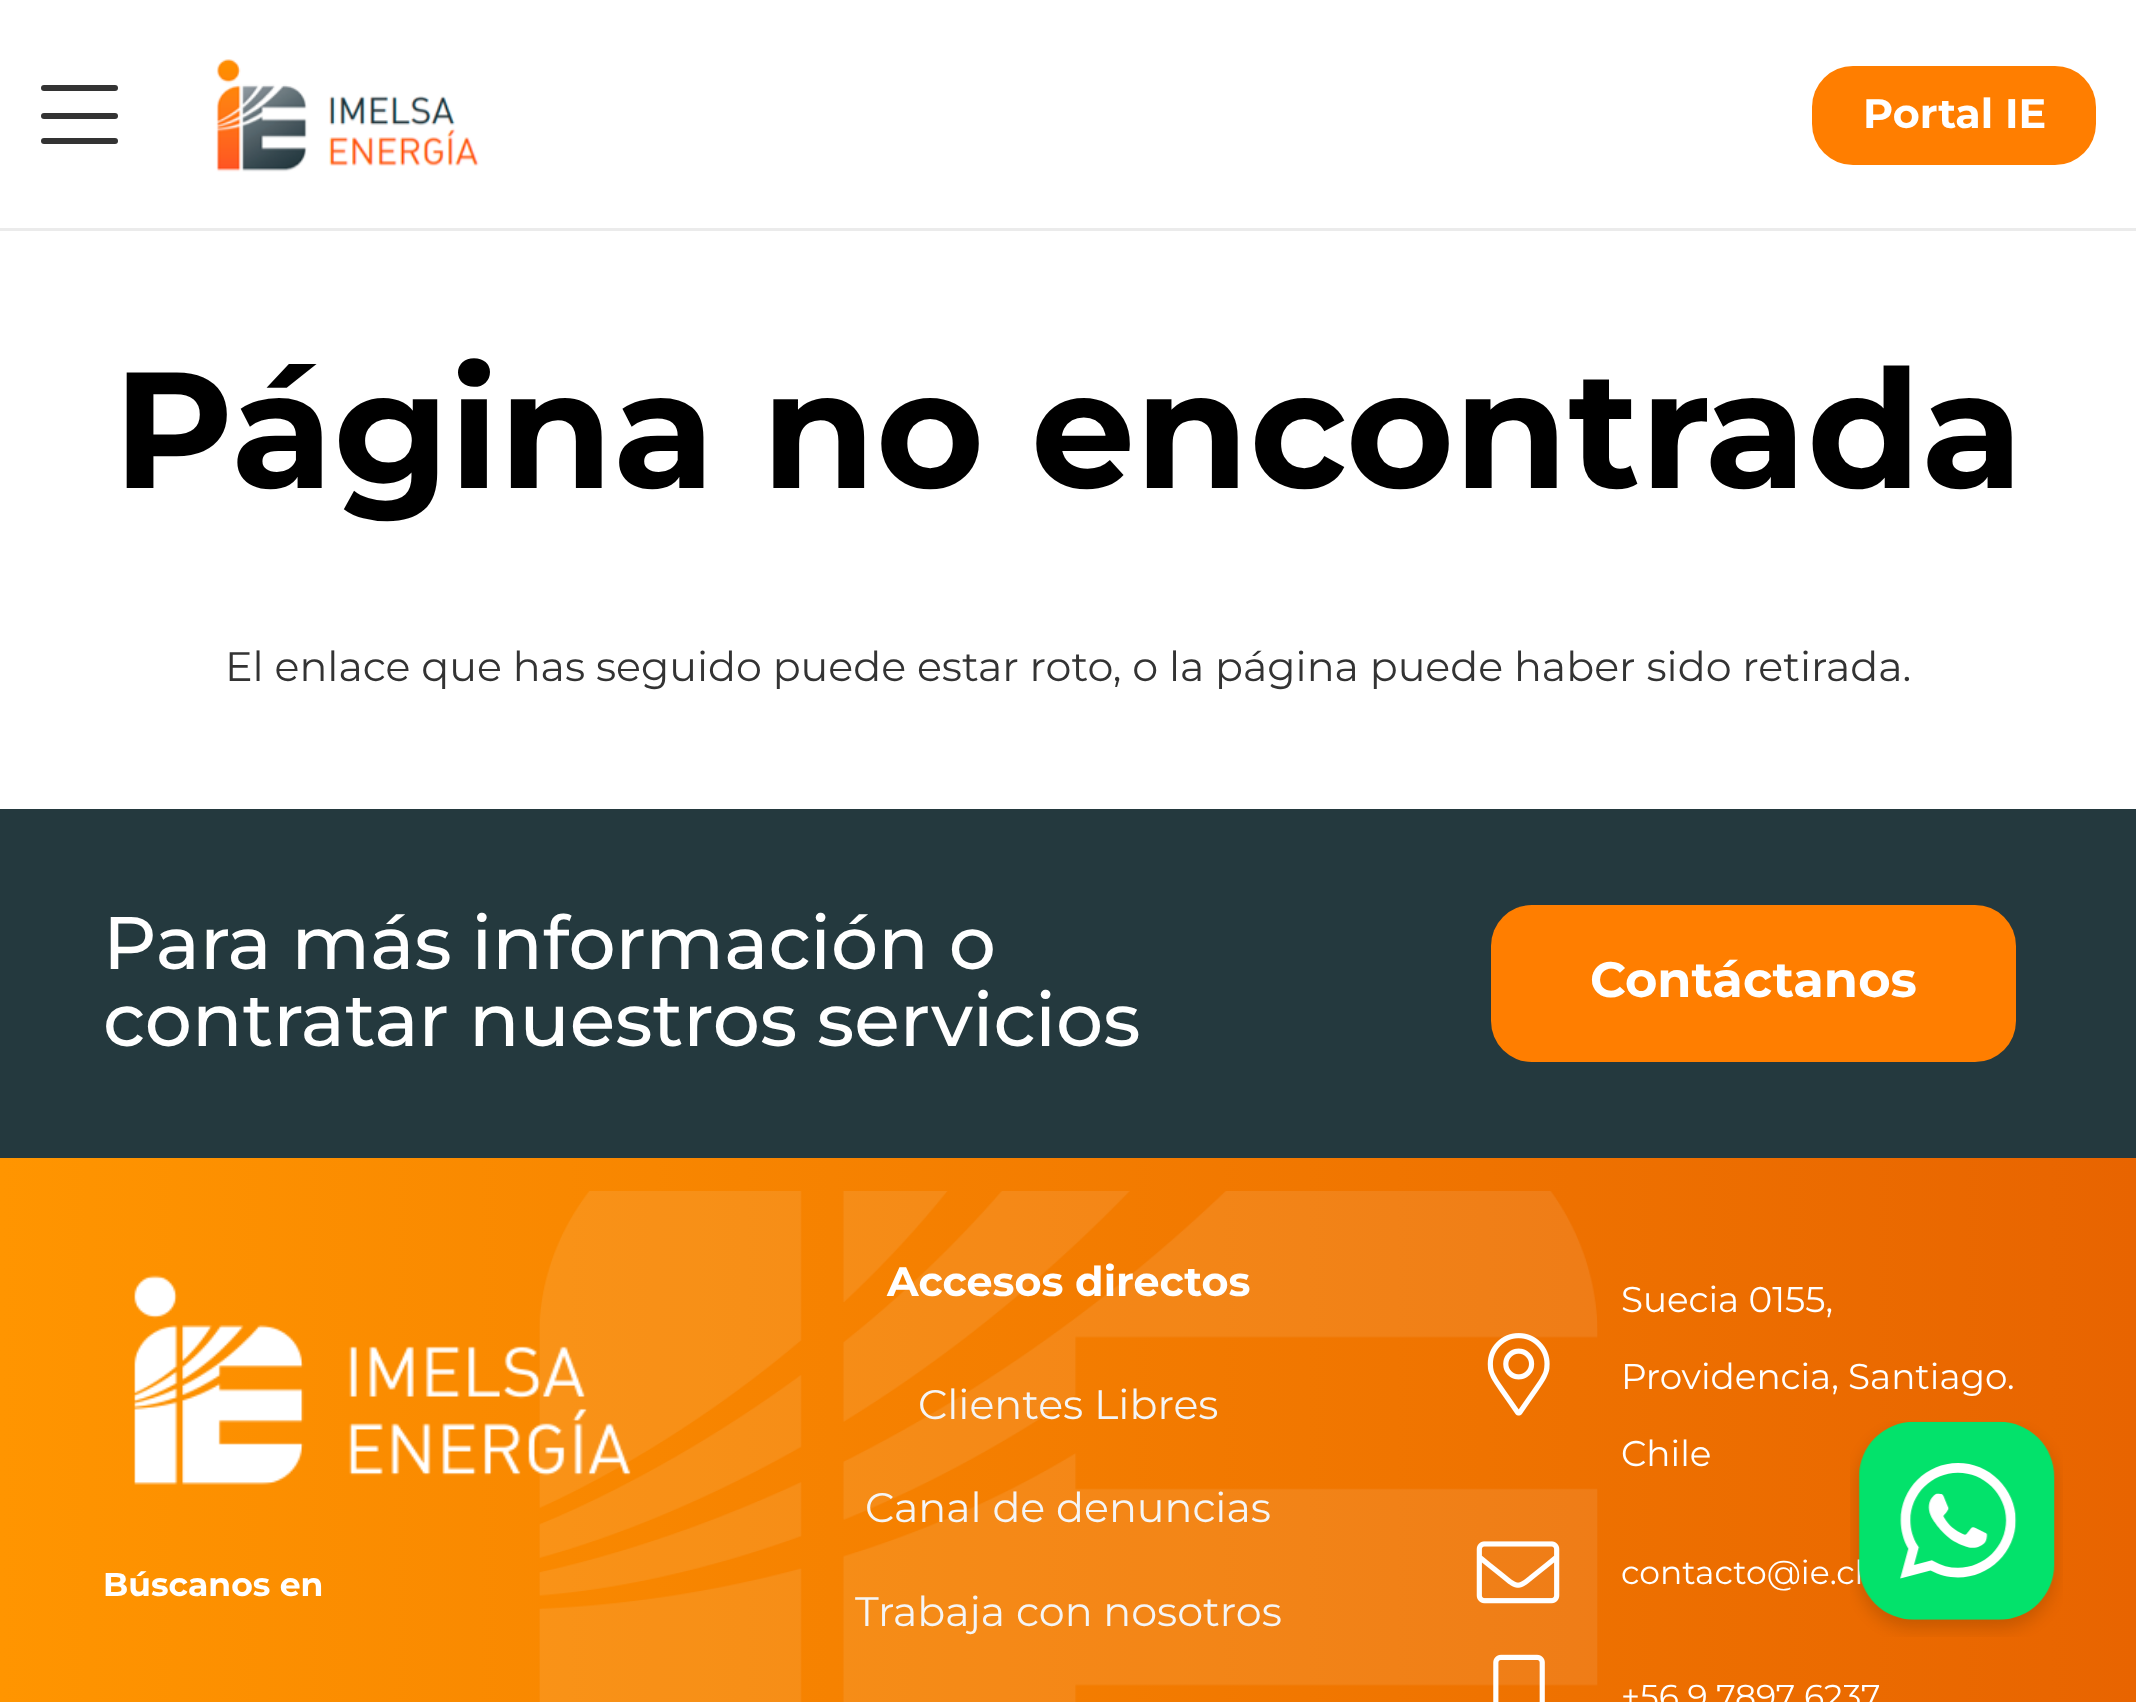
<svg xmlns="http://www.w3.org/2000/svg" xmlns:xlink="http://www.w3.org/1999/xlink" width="2136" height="1702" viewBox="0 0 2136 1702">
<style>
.cls-1{font:bold 41.25px Montserrat;fill:#ffffff}
.cls-2{font:bold 165px Montserrat;fill:#000000}
.cls-3{font:41.25px Montserrat;fill:#333333}
.cls-4{font:500 74.25px Montserrat;fill:#ffffff}
.cls-5{font:bold 49.5px Montserrat;fill:#ffffff}
.cls-6{font:bold 33px Montserrat;fill:#ffffff}
.cls-7{font:41.25px Montserrat;fill:#f5f5f5}
.cls-8{font:35.75px Montserrat;fill:#ffffff}
.cls-9{font:33px Montserrat;fill:#ffffff}
</style>
<defs>
<linearGradient id="g1" gradientUnits="userSpaceOnUse" x1="0" y1="1580" x2="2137" y2="1580"><stop offset="0" stop-color="#ff9500"/><stop offset="1" stop-color="#e86400"/></linearGradient>
</defs>
<rect width="100%" height="100%" fill="#ffffff"/>
<path fill="#ebebeb" d="M0 228V231H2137V3V228Z"/>
<rect fill="#333333" x="41" y="113" width="77" height="6" rx="3"/>
<rect fill="#333333" x="41" y="85" width="77" height="6" rx="3"/>
<rect fill="#333333" x="41" y="138" width="77" height="6" rx="3"/>
<image xlink:href="image0.png" x="216" y="59" width="263" height="113"/>
<rect fill="#ff7e00" x="1812" y="66" width="284" height="99" rx="41"/>
<rect fill="#24393e" x="0" y="809" width="2136" height="349"/>
<rect fill="#ff7e00" x="1491" y="905" width="525" height="157" rx="41"/>
<rect fill="url(#g1)" x="0" y="1158" width="2136" height="544"/>
<image xlink:href="image1.png" x="539" y="1191" width="1059" height="511"/>
<image xlink:href="image2.png" x="134" y="1275" width="497" height="210"/>
<image xlink:href="image3.png" x="1487" y="1333" width="63" height="83"/>
<image xlink:href="image4.png" x="1476" y="1541" width="84" height="63"/>
<image xlink:href="image5.png" x="1493" y="1654" width="52" height="48"/>
<text class="cls-1" x="1863" y="128">Portal IE</text>
<text class="cls-2" x="113" y="488">Página no encontrada</text>
<text class="cls-3" x="225" y="681">El enlace que has seguido puede estar roto, o la página puede haber sido retirada.</text>
<text class="cls-4"><tspan x="103" y="969">Para más información o</tspan><tspan x="103" y="1046">contratar nuestros servicios</tspan></text>
<text class="cls-5" x="1590" y="997">Contáctanos</text>
<text class="cls-6" x="103" y="1596">Búscanos en</text>
<text class="cls-1" x="887" y="1296">Accesos directos</text>
<text class="cls-7" x="918" y="1419">Clientes Libres</text>
<text class="cls-7" x="865" y="1522">Canal de denuncias</text>
<text class="cls-7" x="855" y="1626">Trabaja con nosotros</text>
<text class="cls-8" x="1621" y="1312">Suecia 0155,</text>
<text class="cls-8" x="1621" y="1389">Providencia, Santiago.</text>
<text class="cls-8" x="1621" y="1466">Chile</text>
<text class="cls-9" x="1621" y="1584">contacto@ie.cl</text>
<text class="cls-9" x="1621" y="1708">+56 9 7897 6237</text>
<image xlink:href="image6.png" x="1850" y="1421" width="213" height="216"/>
</svg>
